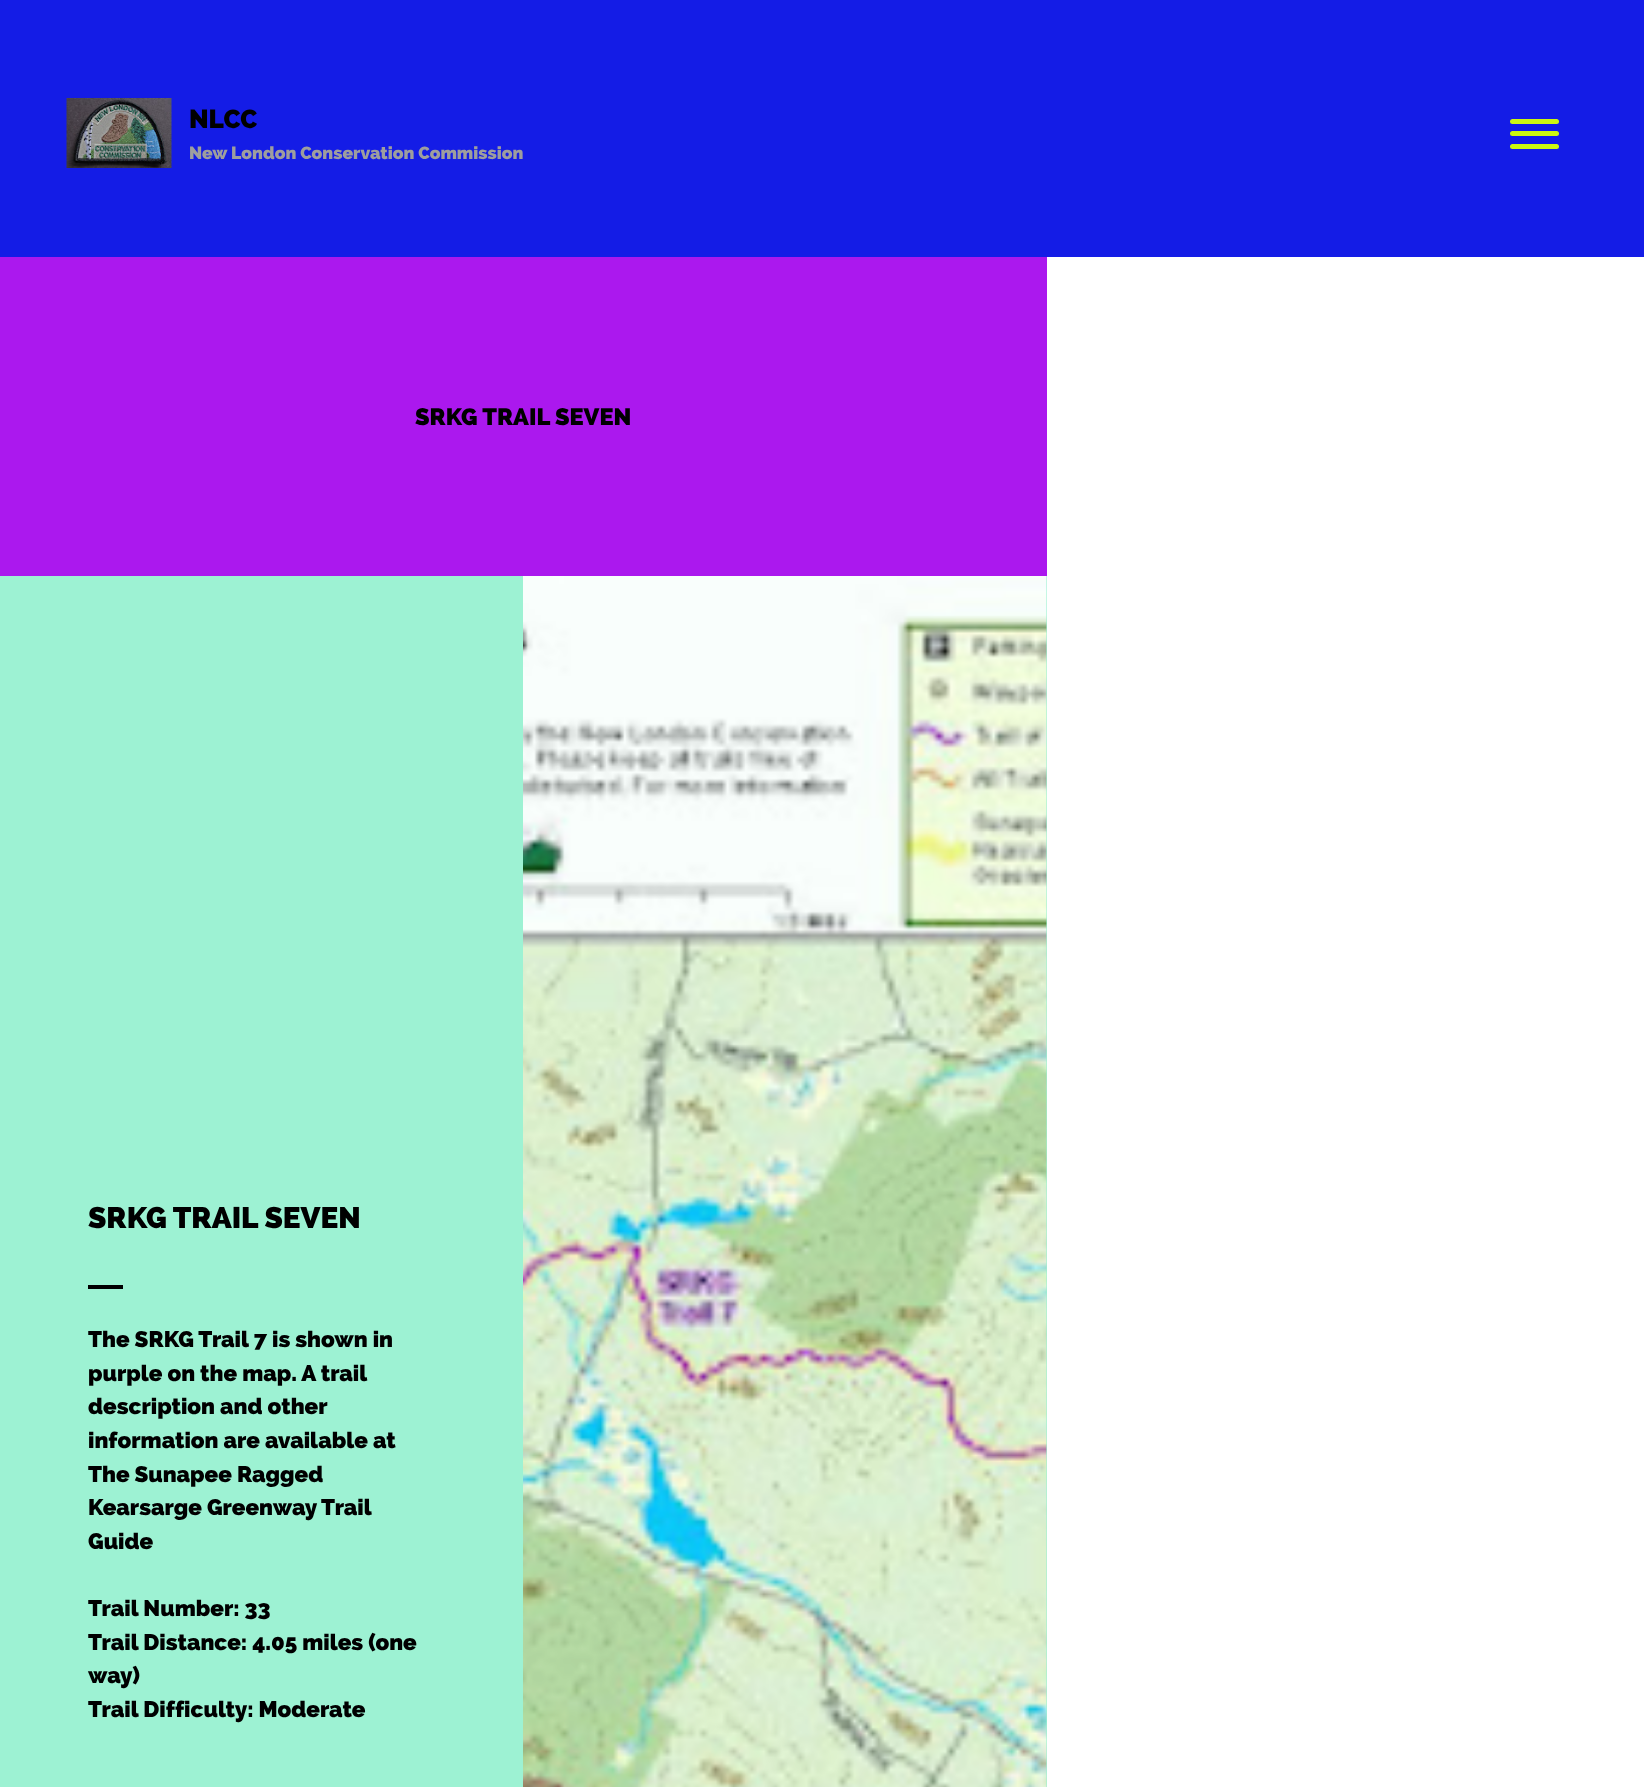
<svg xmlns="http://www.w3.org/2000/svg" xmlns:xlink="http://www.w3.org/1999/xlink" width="1644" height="1787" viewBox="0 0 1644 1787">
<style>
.cls-1{font:900 26px Raleway;fill:#000000}
.cls-2{font:900 17.5px Raleway;fill:#9e9e9e}
.cls-3{font:900 23.6px Raleway;fill:#000000}
.cls-4{font:900 29.75px Raleway;fill:#000000}
.cls-5{font:900 22.4px Raleway;fill:#000000}
</style>
<rect width="100%" height="100%" fill="#ffffff"/>
<rect fill="#141ce6" x="0" y="0" width="1644" height="257"/>
<image xlink:href="image0.png" x="66" y="98" width="106" height="70"/>
<rect fill="#ccf710" x="1510" y="131" width="49" height="5" rx="2.5"/>
<rect fill="#ccf710" x="1510" y="119" width="49" height="5" rx="2.5"/>
<rect fill="#ccf710" x="1510" y="144" width="49" height="5" rx="2.5"/>
<rect fill="#ab18ee" x="0" y="257" width="1047" height="319"/>
<rect fill="#9df2d3" x="0" y="576" width="1047" height="1211"/>
<rect fill="#000000" x="88" y="1285" width="35" height="4"/>
<image xlink:href="image1.png" x="523" y="576" width="524" height="1211"/>
<text class="cls-1" x="189" y="128">NLCC</text>
<text class="cls-2" x="189" y="159">New London Conservation Commission</text>
<text class="cls-3" x="415" y="425">SRKG TRAIL SEVEN</text>
<text class="cls-4" x="88" y="1228">SRKG TRAIL SEVEN</text>
<text class="cls-5"><tspan x="88" y="1347">The SRKG Trail 7 is shown in</tspan><tspan x="88" y="1381">purple on the map. A trail</tspan><tspan x="88" y="1414">description and other</tspan><tspan x="88" y="1448">information are available at</tspan><tspan x="88" y="1482">The Sunapee Ragged</tspan><tspan x="88" y="1515">Kearsarge Greenway Trail</tspan><tspan x="88" y="1549">Guide</tspan></text>
<text class="cls-5"><tspan x="88" y="1616">Trail Number: 33</tspan><tspan x="88" y="1650">Trail Distance: 4.05 miles (one</tspan><tspan x="88" y="1683">way)</tspan><tspan x="88" y="1717">Trail Difficulty: Moderate</tspan></text>
</svg>
